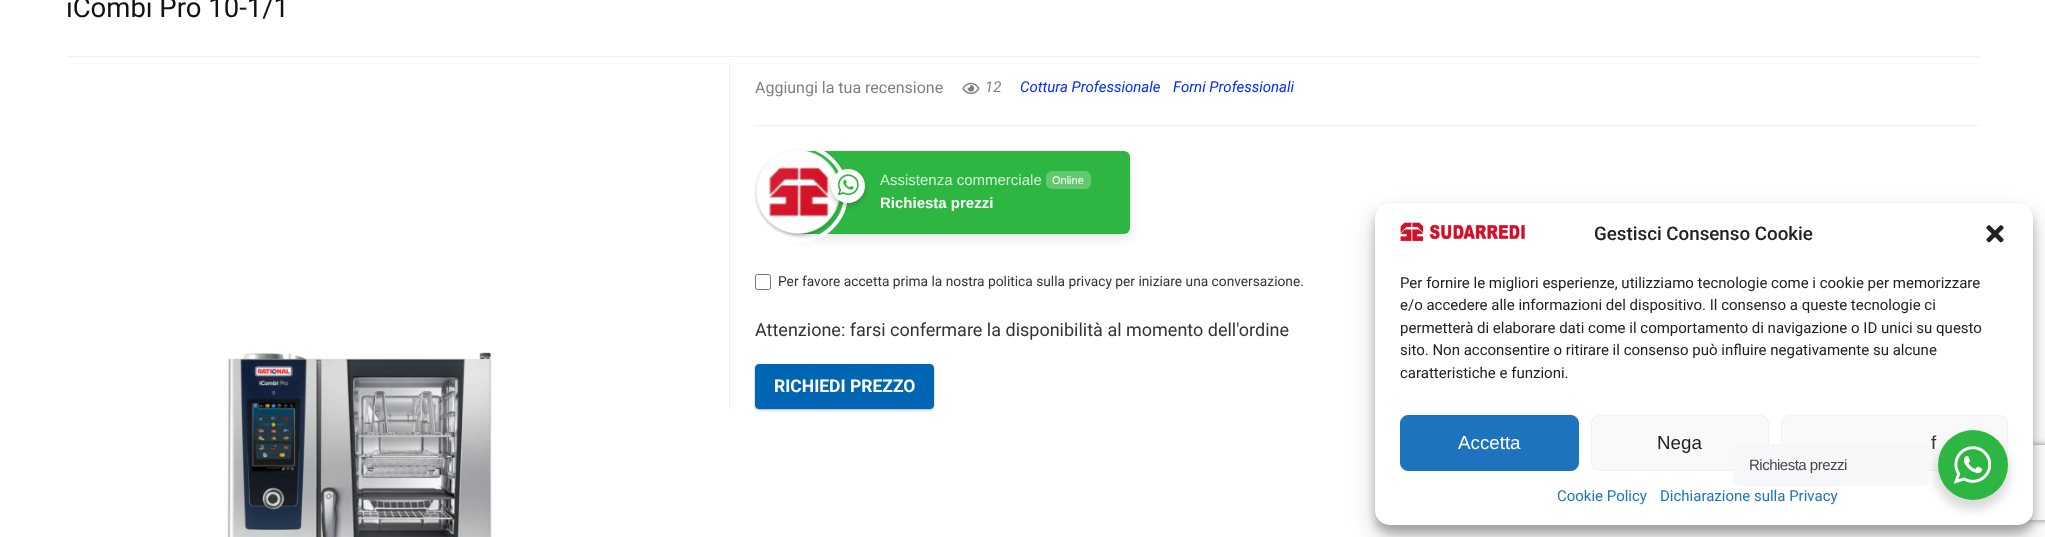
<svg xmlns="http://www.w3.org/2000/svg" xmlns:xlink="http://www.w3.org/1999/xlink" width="2045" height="537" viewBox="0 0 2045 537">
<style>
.cls-1{font:27.5px Roboto;fill:#111111}
.cls-2{font:16px Roboto;fill:#808080}
.cls-3{font:italic 15px Roboto;fill:#808080}
.cls-4{font:italic 15px Roboto;fill:#032bfb}
.cls-5{font:15px Liberation Sans;fill:#d5f0d9}
.cls-6{font:11px Liberation Sans;fill:#ffffff}
.cls-7{font:bold 15px Liberation Sans;fill:#ffffff}
.cls-8{font:13.75px Roboto;fill:#333333}
.cls-9{font:18px Roboto;fill:#333333}
.cls-10{font:bold 17.5px Roboto;fill:#ffffff}
.cls-11{font:500 18.75px Roboto;fill:#222222}
.cls-12{font:15px Roboto;fill:#222222}
.cls-13{font:18.75px Liberation Sans;fill:#ffffff}
.cls-14{font:18.75px Liberation Sans;fill:#222222}
.cls-15{font:18.75px Liberation Sans;fill:#333333}
.cls-16{font:15px Roboto;fill:#1e73be}
.cls-17{font:15px Liberation Sans;letter-spacing:-0.5px;fill:#43474e}
</style>
<defs>
<clipPath id="clip1"><path d="M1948 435H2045V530H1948ZM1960.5 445H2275.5C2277 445 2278 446 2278 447.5V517.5C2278 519 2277 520 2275.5 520H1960.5C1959 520 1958 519 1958 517.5V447.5C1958 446 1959 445 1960.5 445Z" clip-rule="evenodd"/></clipPath>
</defs>
<rect width="100%" height="100%" fill="#ffffff"/>
<rect fill="#f0f0f0" x="66" y="56" width="1913" height="1"/>
<rect fill="#f0f0f0" x="729" y="58" width="1" height="351"/>
<image xlink:href="image0.png" x="962" y="82" width="18" height="12"/>
<rect fill="#f0f0f0" x="755" y="125" width="1224" height="1"/>
<rect fill="#202025" fill-opacity="0.09" filter="blur(5px)" x="791" y="155" width="340" height="85" rx="8"/>
<rect fill="#2db742" x="793" y="151" width="337" height="83" rx="6"/>
<image xlink:href="image1.png" x="754" y="149" width="87" height="88"/>
<circle fill="none" stroke="#ffffff" stroke-width="4" cx="798.5" cy="193.5" r="47.5"/>
<rect fill="#272626" fill-opacity="0.26" filter="blur(2.5px)" x="831" y="173" width="34" height="33" rx="16.5"/>
<circle fill="#ffffff" cx="848" cy="186" r="17"/>
<image xlink:href="image2.png" x="838" y="174" width="21" height="21"/>
<rect fill="#62c971" x="1046" y="171" width="45" height="18" rx="6"/>
<rect fill="none" stroke="#767676" x="755.5" y="274.5" width="15" height="15" rx="2"/>
<rect fill="#000000" fill-opacity="0.08" filter="blur(1px)" x="755" y="365" width="179" height="45" rx="4"/>
<rect fill="#3c4043" fill-opacity="0.3" filter="blur(1px)" x="755" y="365" width="179" height="45" rx="4"/>
<rect fill="#0066b4" stroke="#0066b4" x="755.5" y="364.5" width="178" height="44" rx="3.5"/>
<image xlink:href="image3.png" x="227" y="352" width="265" height="185"/>
<rect fill="#000000" fill-opacity="0.23" filter="blur(4px)" x="1375" y="210" width="658" height="323" rx="15"/>
<rect fill="#000000" fill-opacity="0.19" filter="blur(12.5px)" x="1375" y="215" width="658" height="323" rx="15"/>
<g clip-path="url(#clip1)">
<rect fill="#808080" filter="blur(3px)" x="1958" y="445" width="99" height="75" rx="2.5"/>
</g>
<rect fill="#ffffff" x="1375" y="203" width="658" height="322" rx="15"/>
<image xlink:href="image4.png" x="1400" y="222" width="125" height="20"/>
<image xlink:href="image5.png" x="1986" y="225" width="18" height="18"/>
<rect fill="#1e73be" stroke="#1e73be" x="1400.5" y="415.5" width="178" height="55" rx="7.5"/>
<rect fill="#f9f9f9" stroke="#f2f2f2" x="1591.5" y="415.5" width="177" height="55" rx="7.5"/>
<rect fill="#f9f9f9" stroke="#f2f2f2" x="1781.5" y="415.5" width="226" height="55" rx="7.5"/>
<rect fill="#000000" fill-opacity="0.14" filter="blur(5px)" x="1935" y="435" width="75" height="75" rx="37.5"/>
<rect fill="#f5f7f9" x="1734" y="444" width="195" height="42" rx="5"/>
<circle fill="#2db742" cx="1973" cy="465" r="35"/>
<image xlink:href="image6.png" x="1954" y="446" width="37" height="38"/>
<text class="cls-1" x="66" y="17">iCombi Pro 10-1/1</text>
<text class="cls-2" x="755" y="93">Aggiungi la tua recensione</text>
<text class="cls-3" x="985" y="92">12</text>
<text class="cls-4" x="1020" y="92">Cottura Professionale</text>
<text class="cls-4" x="1173" y="92">Forni Professionali</text>
<text class="cls-5" x="880" y="185">Assistenza commerciale</text>
<text class="cls-6" x="1052" y="184">Online</text>
<text class="cls-7" x="880" y="208">Richiesta prezzi</text>
<text class="cls-8" x="778" y="286">Per favore accetta prima la nostra politica sulla privacy per iniziare una conversazione.</text>
<text class="cls-9" x="755" y="336">Attenzione: farsi confermare la disponibilità al momento dell'ordine</text>
<text class="cls-10" x="774" y="392">RICHIEDI PREZZO</text>
<text class="cls-11" x="1594" y="240">Gestisci Consenso Cookie</text>
<text class="cls-12"><tspan x="1400" y="288">Per fornire le migliori esperienze, utilizziamo tecnologie come i cookie per memorizzare</tspan><tspan x="1400" y="310">e/o accedere alle informazioni del dispositivo. Il consenso a queste tecnologie ci</tspan><tspan x="1400" y="333">permetterà di elaborare dati come il comportamento di navigazione o ID unici su questo</tspan><tspan x="1400" y="355">sito. Non acconsentire o ritirare il consenso può influire negativamente su alcune</tspan><tspan x="1400" y="378">caratteristiche e funzioni.</tspan></text>
<text class="cls-13" x="1458" y="449">Accetta</text>
<text class="cls-14" x="1657" y="449">Nega</text>
<text class="cls-15" x="1931" y="449">f</text>
<text class="cls-16" x="1557" y="501">Cookie Policy</text>
<text class="cls-16" x="1660" y="501">Dichiarazione sulla Privacy</text>
<text class="cls-17" x="1749" y="470">Richiesta prezzi</text>
</svg>
